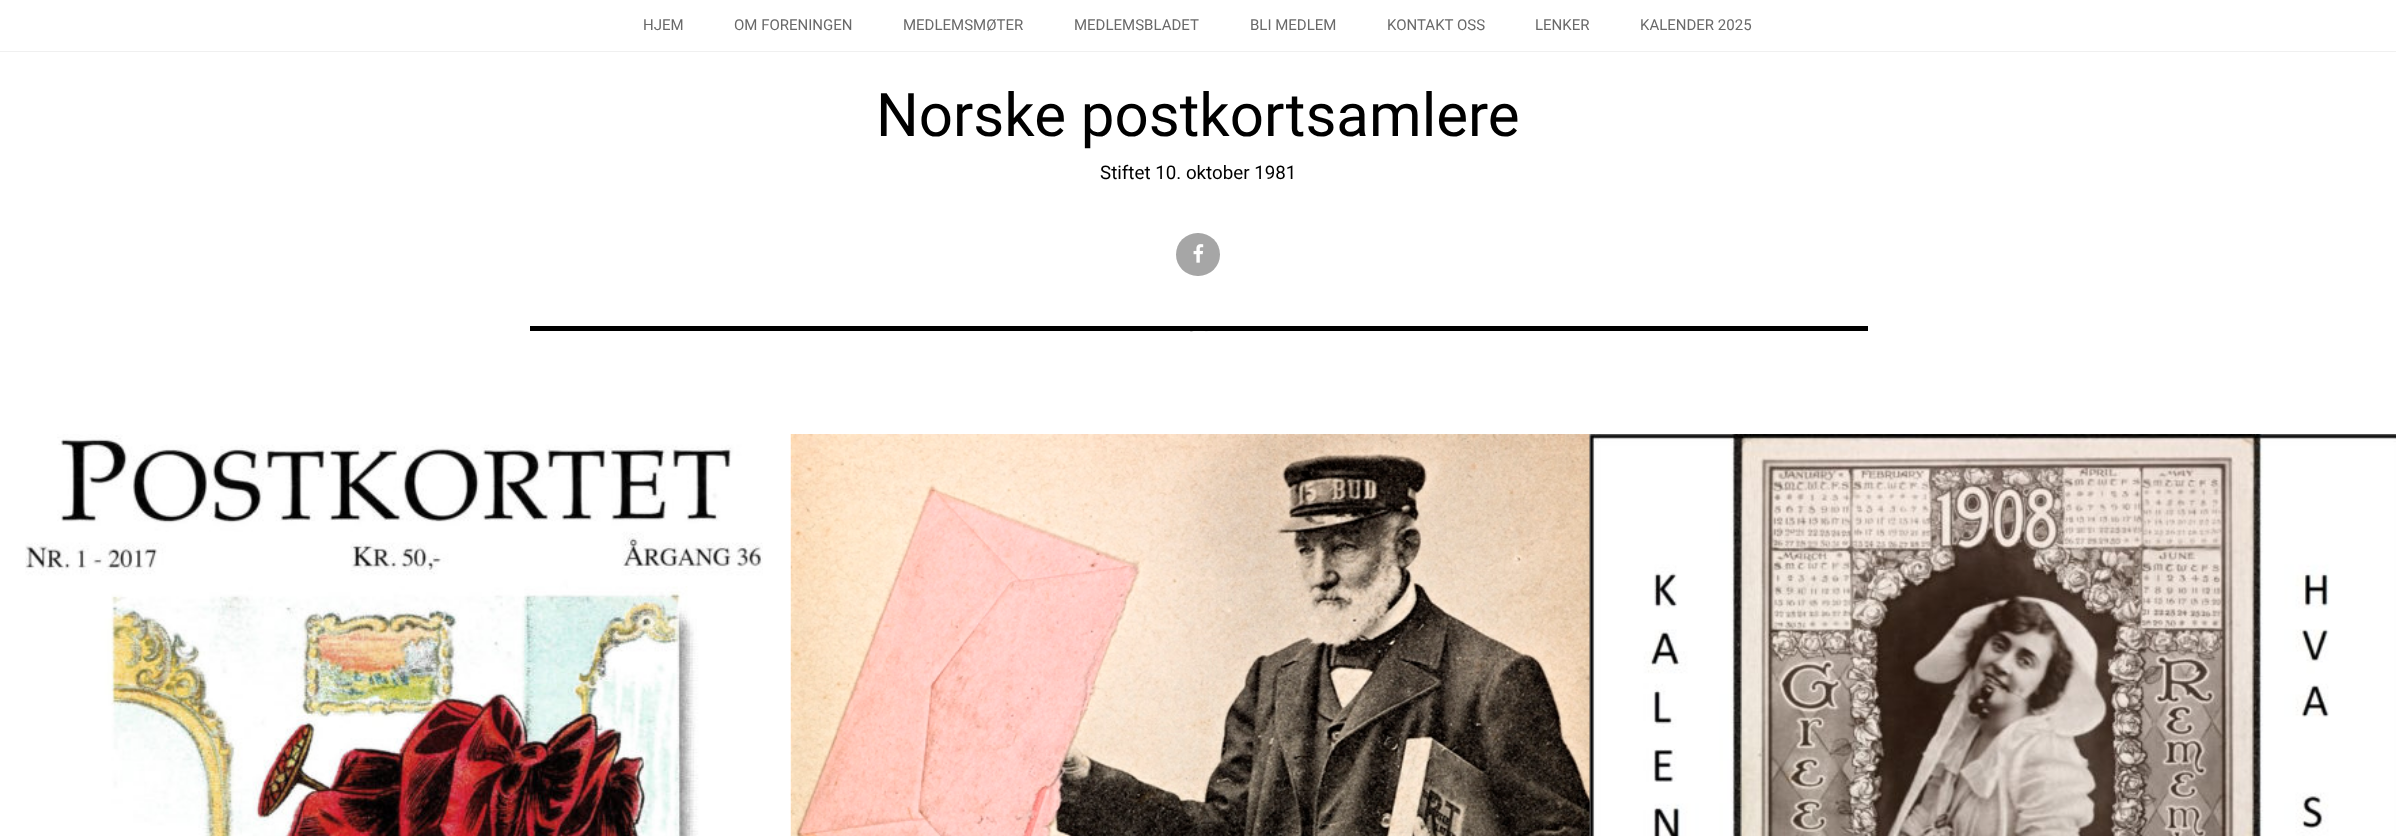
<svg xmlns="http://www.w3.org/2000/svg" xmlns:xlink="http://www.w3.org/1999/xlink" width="2396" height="836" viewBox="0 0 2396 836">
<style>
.cls-1{font:15px Roboto;fill:#696969}
.cls-2{font:60px Roboto;fill:#000000}
.cls-3{font:18.75px Roboto;fill:#000000}
</style>
<rect width="100%" height="100%" fill="#ffffff"/>
<rect fill="#f0f0f0" x="0" y="51" width="2396" height="1"/>
<rect fill="#a6a6a6" x="1176" y="233" width="44" height="43" rx="21.5"/>
<image xlink:href="image0.png" x="1193" y="244" width="11" height="19"/>
<image xlink:href="image1.png" x="1190" y="331" width="18" height="1"/>
<rect fill="#000000" x="530" y="326" width="1338" height="5"/>
<image xlink:href="image2.png" x="25" y="434" width="738" height="402"/>
<image xlink:href="image3.png" x="790" y="434" width="816" height="402"/>
<image xlink:href="image4.png" x="1589" y="434" width="807" height="402"/>
<text class="cls-1" x="643" y="30">HJEM</text>
<text class="cls-1" x="734" y="30">OM FORENINGEN</text>
<text class="cls-1" x="903" y="30">MEDLEMSMØTER</text>
<text class="cls-1" x="1074" y="30">MEDLEMSBLADET</text>
<text class="cls-1" x="1250" y="30">BLI MEDLEM</text>
<text class="cls-1" x="1387" y="30">KONTAKT OSS</text>
<text class="cls-1" x="1535" y="30">LENKER</text>
<text class="cls-1" x="1640" y="30">KALENDER 2025</text>
<text class="cls-2" x="876" y="136">Norske postkortsamlere</text>
<text class="cls-3" x="1100" y="179">Stiftet 10. oktober 1981</text>
</svg>
